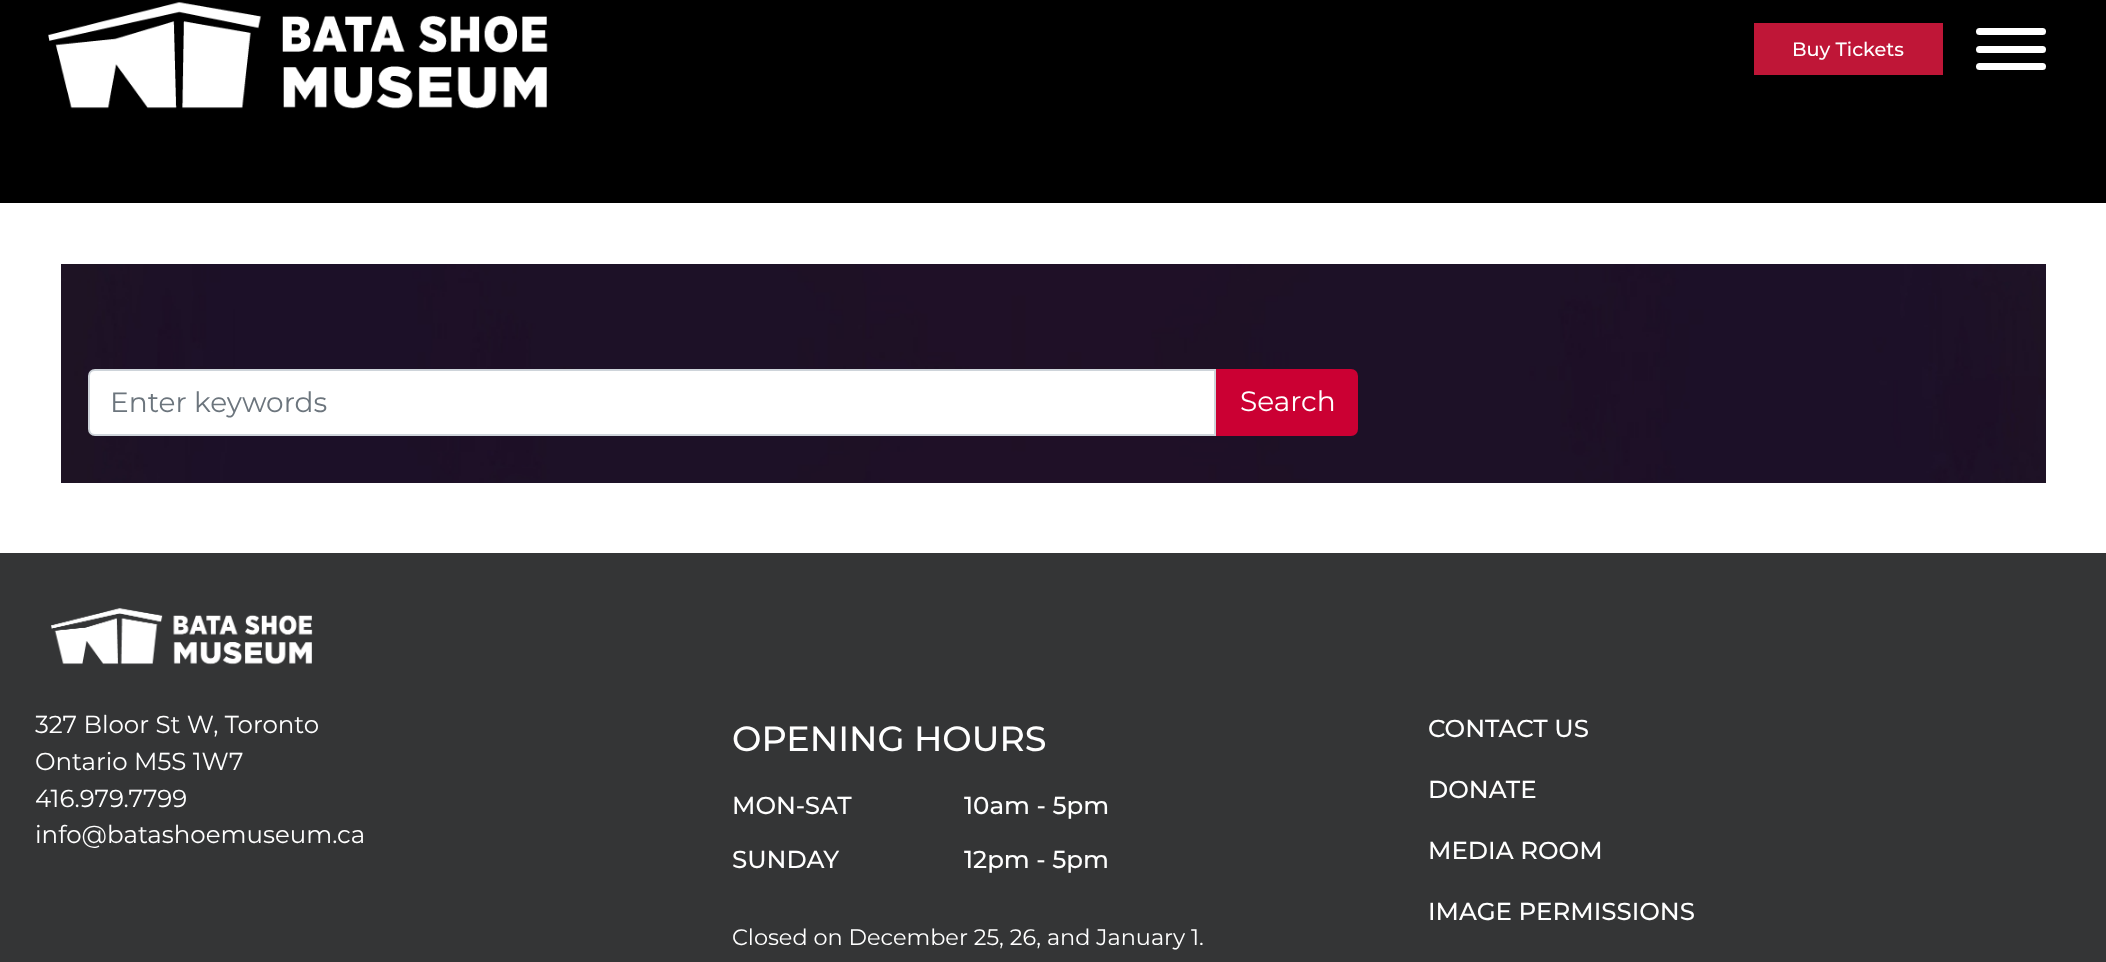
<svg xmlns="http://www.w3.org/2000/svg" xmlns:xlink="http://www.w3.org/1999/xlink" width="2106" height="962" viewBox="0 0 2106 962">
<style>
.cls-1{font:500 19.25px Montserrat;fill:#ffffff}
.cls-2{font:28px Montserrat;fill:#6c757d}
.cls-3{font:28px Montserrat;fill:#ffffff}
.cls-4{font:24.5px Montserrat;fill:#ffffff}
.cls-5{font:500 35px Montserrat;fill:#ffffff}
.cls-6{font:500 24.5px Montserrat;fill:#ffffff}
.cls-7{font:22.4px Montserrat;fill:#ffffff}
</style>
<rect width="100%" height="100%" fill="#ffffff"/>
<rect fill="#000000" x="0" y="0" width="2106" height="203"/>
<image xlink:href="image0.png" x="48" y="2" width="500" height="107"/>
<rect fill="#bf1637" x="1754" y="23" width="189" height="52"/>
<rect fill="#ffffff" x="1976" y="63" width="70" height="7" rx="3.5"/>
<rect fill="#ffffff" x="1976" y="28" width="70" height="7" rx="3.5"/>
<rect fill="#ffffff" x="1976" y="46" width="70" height="7" rx="3.5"/>
<rect fill="#23162b" x="61" y="264" width="1985" height="219"/>
<image xlink:href="image1.png" x="61" y="264" width="1985" height="219"/>
<path fill="#ffffff" stroke="#ced4da" stroke-width="2" d="M95 370H1215V435H95C91.5 435 89 432.5 89 429V376C89 372.5 91.5 370 95 370Z"/>
<path fill="#cb0033" stroke="#cb0033" stroke-width="2" d="M1217 370H1351C1354.5 370 1357 372.5 1357 376V429C1357 432.5 1354.5 435 1351 435H1217Z"/>
<rect fill="#343536" x="0" y="553" width="2106" height="409"/>
<image xlink:href="image2.png" x="51" y="608" width="262" height="57"/>
<text class="cls-1" x="1792" y="56">Buy Tickets</text>
<text class="cls-2" x="110" y="412">Enter keywords</text>
<text class="cls-3" x="1240" y="411">Search</text>
<text class="cls-4"><tspan x="35" y="733">327 Bloor St W, Toronto</tspan><tspan x="35" y="770">Ontario M5S 1W7</tspan><tspan x="35" y="807">416.979.7799</tspan><tspan x="35" y="843">info@batashoemuseum.ca</tspan></text>
<text class="cls-5" x="732" y="751">OPENING HOURS</text>
<text class="cls-6" x="732" y="814">MON-SAT</text>
<text class="cls-6" x="964" y="814">10am - 5pm</text>
<text class="cls-6" x="732" y="868">SUNDAY</text>
<text class="cls-6" x="964" y="868">12pm - 5pm</text>
<text class="cls-7" x="732" y="945">Closed on December 25, 26, and January 1.</text>
<text class="cls-6" x="1428" y="737">CONTACT US</text>
<text class="cls-6" x="1428" y="798">DONATE</text>
<text class="cls-6" x="1428" y="859">MEDIA ROOM</text>
<text class="cls-6" x="1428" y="920">IMAGE PERMISSIONS</text>
</svg>
